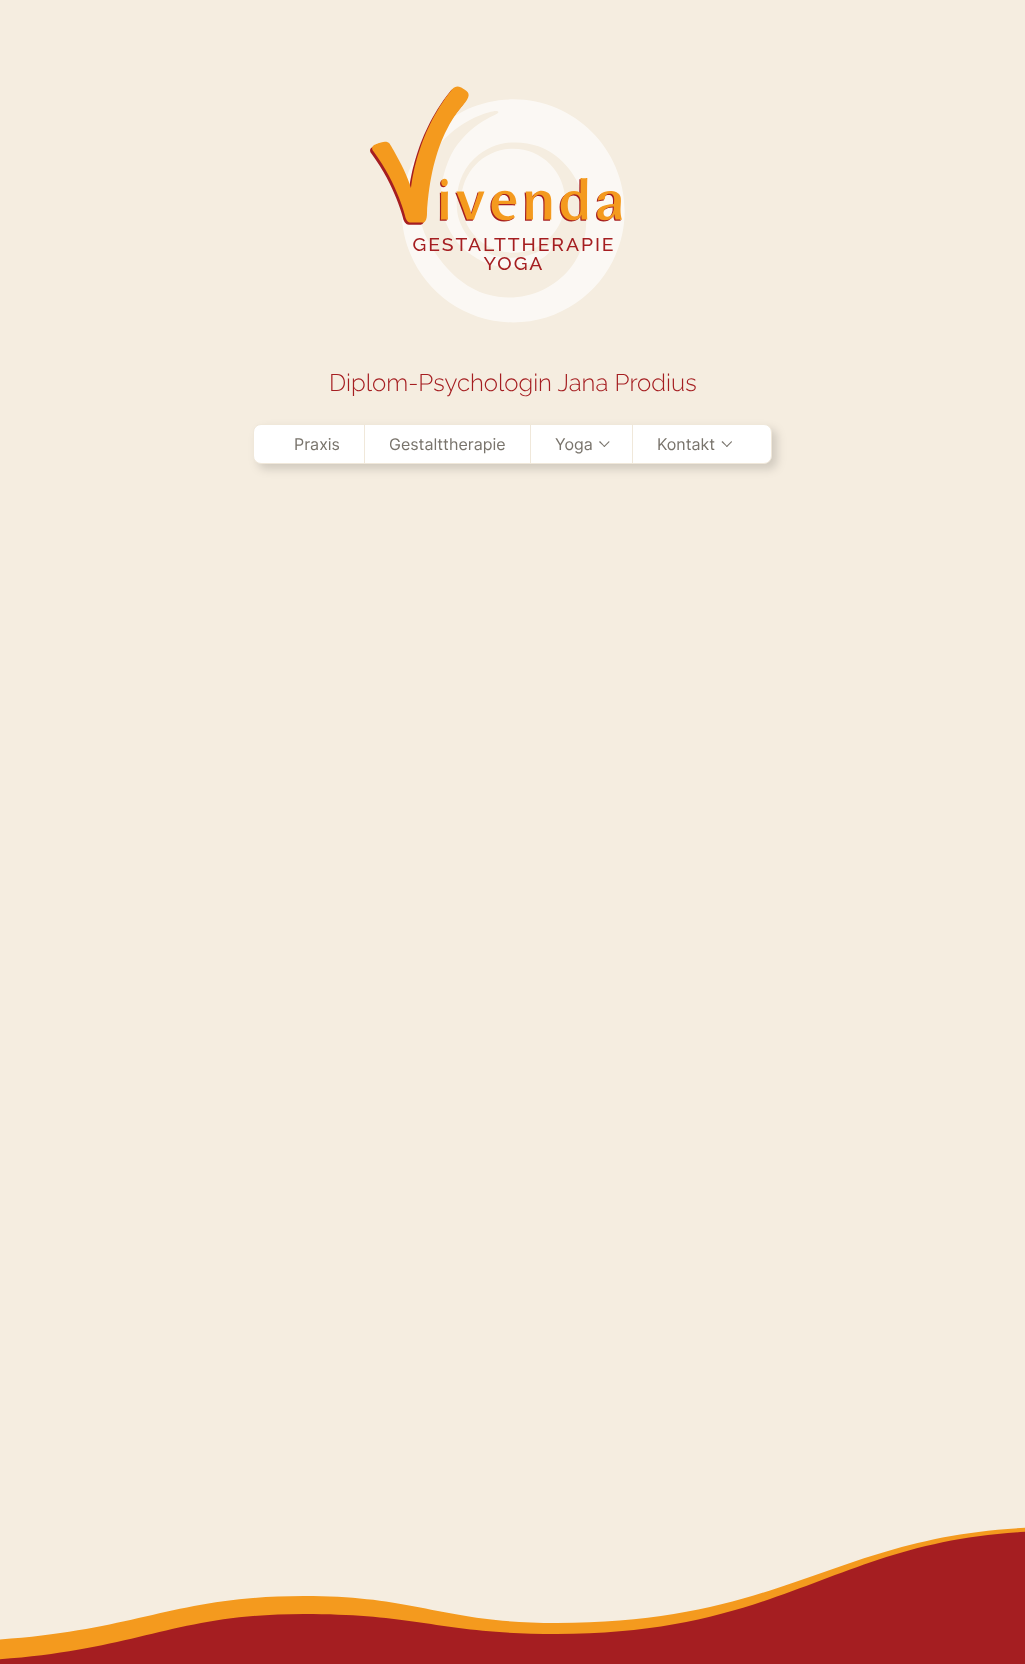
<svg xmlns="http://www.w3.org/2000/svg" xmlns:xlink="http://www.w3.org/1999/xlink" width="1025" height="1664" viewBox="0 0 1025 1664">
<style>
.cls-1{font:300 24px Raleway;fill:#a51e21}
.cls-2{font:16px Inter;fill:#78736b}
</style>
<rect width="100%" height="100%" fill="#f5ede0"/>
<image xlink:href="image0.png" x="370" y="86" width="255" height="237"/>
<rect fill="#000000" fill-opacity="0.15" filter="blur(5px)" x="258" y="429" width="519" height="40" rx="8"/>
<rect fill="#ffffff" stroke="#f0e8da" x="253.5" y="424.5" width="518" height="39" rx="7.5"/>
<rect fill="#f0e8da" x="364" y="425" width="1" height="38"/>
<rect fill="#f0e8da" x="530" y="425" width="1" height="38"/>
<path fill="#78736b" d="M609 441L609.5 442L604.5 447L603.5 446.5Z"/>
<path fill="#78736b" d="M600 441L605 446.5L604.5 447L599 442Z"/>
<rect fill="#f0e8da" x="632" y="425" width="1" height="38"/>
<path fill="#78736b" d="M731.5 441L732 442L727 447L726 446.5Z"/>
<path fill="#78736b" d="M722.5 441L727.5 446.5L727 447L721.5 442Z"/>
<path fill="#f49a1e" d="M-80 1642C130 1642 154 1596 304 1596C420 1596 441 1623 557 1623C796 1623 840 1527 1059 1527C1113 1527 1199 1538 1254 1538L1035 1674H-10"/>
<path fill="#a51e21" d="M-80 1662C130 1662 154 1614 304 1614C420 1614 441 1634 557 1634C796 1634 840 1531 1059 1531C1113 1531 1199 1538 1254 1538L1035 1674H-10"/>
<text class="cls-1" x="329" y="391">Diplom-Psychologin Jana Prodius</text>
<text class="cls-2" x="294" y="450">Praxis</text>
<text class="cls-2" x="389" y="450">Gestalttherapie</text>
<text class="cls-2" x="555" y="450">Yoga</text>
<text class="cls-2" x="657" y="450">Kontakt</text>
</svg>
